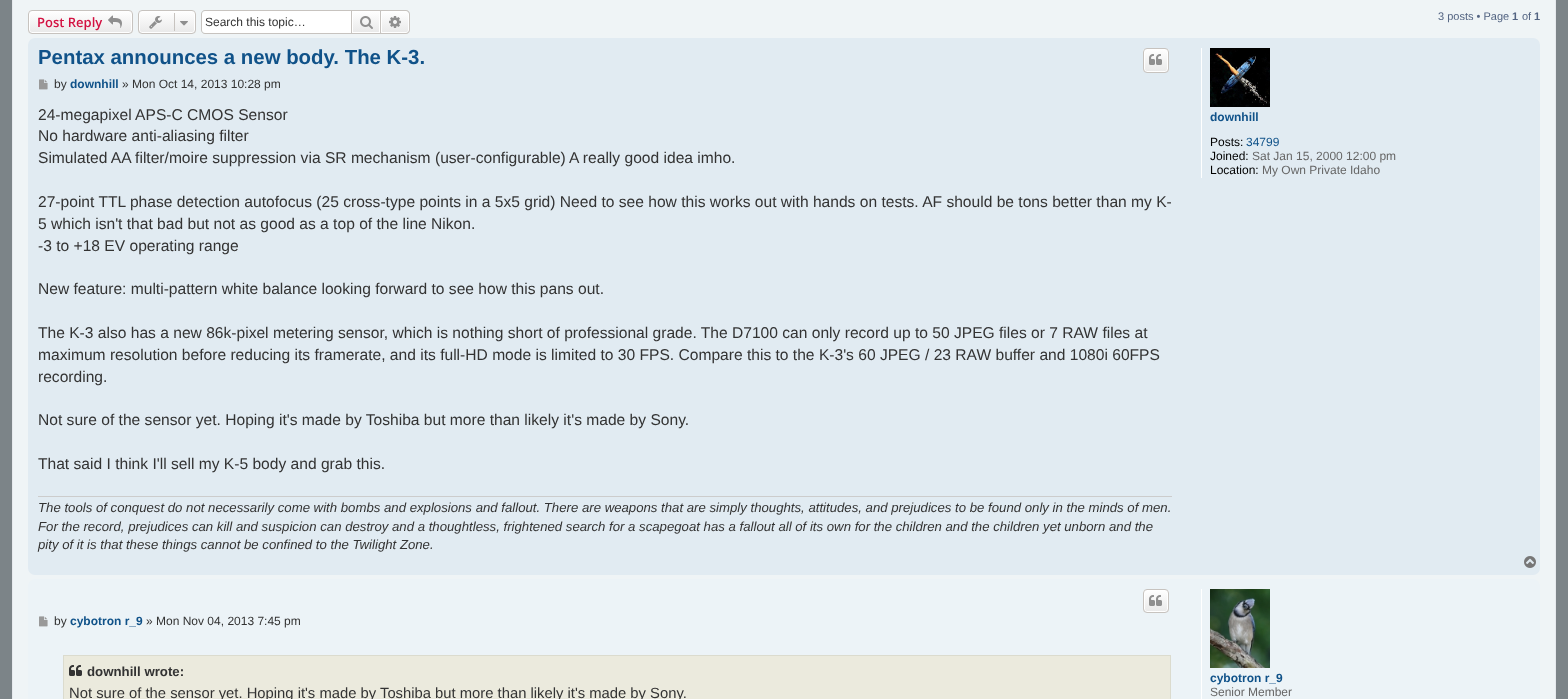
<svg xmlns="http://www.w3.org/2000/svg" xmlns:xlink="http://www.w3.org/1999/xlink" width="1568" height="699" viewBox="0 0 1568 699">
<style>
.cls-1{font:600 13px Open Sans;fill:#d31141}
.cls-2{font:12px Liberation Sans;fill:#333333}
.cls-3{font:11px Liberation Sans;fill:#536482}
.cls-4{font:bold 11px Liberation Sans;fill:#536482}
.cls-5{font:bold 20.4px Liberation Sans;fill:#105289}
.cls-6{font:bold 12px Liberation Sans;fill:#105289}
.cls-7{font:15.6px Liberation Sans;fill:#333333}
.cls-8{font:italic 13.2px Liberation Sans;fill:#333333}
.cls-9{font:12px Liberation Sans;fill:#000000}
.cls-10{font:12px Liberation Sans;fill:#105289}
.cls-11{font:12px Liberation Sans;fill:#666666}
.cls-12{font:bold 13.25px Liberation Sans;fill:#333333}
.cls-13{font:14.8px Liberation Sans;fill:#333333}
</style>
<defs>
<clipPath id="clip1"><rect x="28" y="10" width="105" height="24" rx="4"/></clipPath>
<linearGradient id="g1" gradientUnits="userSpaceOnUse" x1="81" y1="11" x2="81" y2="33"><stop offset="0" stop-color="#ffffff"/><stop offset="1" stop-color="#e9e9e9"/></linearGradient>
<clipPath id="clip2"><rect x="138" y="10" width="58" height="24" rx="4"/></clipPath>
<linearGradient id="g2" gradientUnits="userSpaceOnUse" x1="167" y1="11" x2="167" y2="33"><stop offset="0" stop-color="#ffffff"/><stop offset="1" stop-color="#e9e9e9"/></linearGradient>
<linearGradient id="g3" gradientUnits="userSpaceOnUse" x1="366" y1="11" x2="366" y2="33"><stop offset="0" stop-color="#ffffff"/><stop offset="1" stop-color="#e9e9e9"/></linearGradient>
<linearGradient id="g4" gradientUnits="userSpaceOnUse" x1="395" y1="11" x2="395" y2="33"><stop offset="0" stop-color="#ffffff"/><stop offset="1" stop-color="#e9e9e9"/></linearGradient>
<clipPath id="clip3"><rect x="1143" y="48" width="26" height="25" rx="4"/></clipPath>
<linearGradient id="g5" gradientUnits="userSpaceOnUse" x1="1156" y1="49" x2="1156" y2="72"><stop offset="0" stop-color="#ffffff"/><stop offset="1" stop-color="#e9e9e9"/></linearGradient>
<clipPath id="clip4"><rect x="1143" y="589" width="26" height="24" rx="4"/></clipPath>
<linearGradient id="g6" gradientUnits="userSpaceOnUse" x1="1156" y1="590" x2="1156" y2="612"><stop offset="0" stop-color="#ffffff"/><stop offset="1" stop-color="#e9e9e9"/></linearGradient>
</defs>
<rect width="100%" height="100%" fill="#7c8488"/>
<rect fill="#eff4f6" stroke="#e6e9ed" x="12.5" y="-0.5" width="1543" height="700"/>
<g clip-path="url(#clip1)">
<rect fill="url(#g1)" x="28" y="11" width="105" height="22"/>
</g>
<rect fill="none" stroke="#ffffff" x="29.5" y="11.5" width="102" height="21" rx="2.5"/>
<rect fill="none" stroke="#c7c3bf" x="28.5" y="10.5" width="104" height="23" rx="3.5"/>
<image xlink:href="image0.png" x="108" y="15" width="14" height="13"/>
<g clip-path="url(#clip2)">
<rect fill="url(#g2)" x="138" y="11" width="58" height="22"/>
</g>
<rect fill="none" stroke="#ffffff" x="139.5" y="11.5" width="55" height="21" rx="2.5"/>
<rect fill="none" stroke="#c7c3bf" x="138.5" y="10.5" width="57" height="23" rx="3.5"/>
<image xlink:href="image1.png" x="149" y="16" width="13" height="13"/>
<rect fill="#c7c3bf" x="174" y="13" width="1" height="18"/>
<image xlink:href="image2.png" x="180" y="21" width="8" height="5"/>
<path fill="#ffffff" d="M205 11H351V33H205C203.5 33 202 31.5 202 30V14C202 12.5 203.5 11 205 11Z"/>
<path fill="#c7c3bf" fill-rule="evenodd" d="M205 10H351V34H205C203 34 201 32 201 30V14C201 12 203 10 205 10ZM205 11H351V33H205C203 33 202 32 202 30V14C202 12 203 11 205 11Z"/>
<rect fill="url(#g3)" x="353" y="12" width="26" height="20"/>
<rect fill="none" stroke="#ffffff" x="352.5" y="11.5" width="27" height="21"/>
<rect fill="none" stroke="#c7c3bf" x="351.5" y="10.5" width="29" height="23"/>
<image xlink:href="image3.png" x="360" y="16" width="13" height="13"/>
<path fill="url(#g4)" stroke="#ffffff" d="M381.5 11.5H406C407.5 11.5 408.5 12.5 408.5 14V30C408.5 31.5 407.5 32.5 406 32.5H381.5Z"/>
<path fill="#c7c3bf" fill-rule="evenodd" d="M381 10H406C408 10 410 12 410 14V30C410 32 408 34 406 34H381ZM381 11H406C407.5 11 409 12.5 409 14V30C409 31.5 407.5 33 406 33H381Z"/>
<image xlink:href="image4.png" x="389" y="16" width="12" height="12"/>
<rect fill="#e1ebf2" x="28" y="38" width="1512" height="537" rx="7"/>
<g clip-path="url(#clip3)">
<rect fill="url(#g5)" x="1143" y="49" width="26" height="23"/>
</g>
<rect fill="none" stroke="#ffffff" x="1144.5" y="49.5" width="23" height="22" rx="2.5"/>
<rect fill="none" stroke="#c7c3bf" x="1143.5" y="48.5" width="25" height="24" rx="3.5"/>
<image xlink:href="image5.png" x="1149" y="54" width="13" height="11"/>
<image xlink:href="image6.png" x="39" y="79" width="9" height="11"/>
<rect fill="#cccccc" x="38" y="496" width="1134" height="1"/>
<rect fill="#ffffff" x="1201" y="48" width="1" height="130"/>
<image xlink:href="image7.png" x="1210" y="48" width="60" height="59"/>
<image xlink:href="image8.png" x="1524" y="556" width="12" height="12"/>
<rect fill="#ecf3f7" x="28" y="579" width="1512" height="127" rx="7"/>
<g clip-path="url(#clip4)">
<rect fill="url(#g6)" x="1143" y="590" width="26" height="22"/>
</g>
<rect fill="none" stroke="#ffffff" x="1144.5" y="590.5" width="23" height="21" rx="2.5"/>
<rect fill="none" stroke="#c7c3bf" x="1143.5" y="589.5" width="25" height="23" rx="3.5"/>
<image xlink:href="image5.png" x="1149" y="595" width="13" height="11"/>
<image xlink:href="image9.png" x="39" y="616" width="9" height="11"/>
<rect fill="#ebeadd" stroke="#dbdbce" x="63.5" y="655.5" width="1107" height="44"/>
<image xlink:href="image10.png" x="69" y="665" width="13" height="11"/>
<rect fill="#ffffff" x="1201" y="589" width="1" height="110"/>
<image xlink:href="image11.png" x="1210" y="589" width="60" height="79"/>
<text class="cls-1" x="37" y="27">Post Reply</text>
<text class="cls-2" x="205" y="26">Search this topic…</text>
<text class="cls-3" x="1438" y="20">3 posts • Page</text>
<text class="cls-4" x="1512" y="20">1</text>
<text class="cls-3" x="1522" y="20">of</text>
<text class="cls-4" x="1534" y="20">1</text>
<text class="cls-5" x="38" y="64">Pentax announces a new body. The K-3.</text>
<text class="cls-2" x="54" y="88">by</text>
<text class="cls-6" x="70" y="88">downhill</text>
<text class="cls-2" x="122" y="88">» Mon Oct 14, 2013 10:28 pm</text>
<text class="cls-7"><tspan x="38" y="120">24-megapixel APS-C CMOS Sensor</tspan><tspan x="38" y="141">No hardware anti-aliasing filter</tspan><tspan x="38" y="163">Simulated AA filter/moire suppression via SR mechanism (user-configurable)</tspan></text>
<text class="cls-7" x="569" y="163">A really good idea imho.</text>
<text class="cls-7"><tspan x="38" y="207">27-point TTL phase detection autofocus (25 cross-type points in a 5x5 grid) Need to see how this works out with hands on tests. AF should be tons better than my K-</tspan><tspan x="38" y="229">5 which isn't that bad but not as good as a top of the line Nikon.</tspan><tspan x="38" y="251">-3 to +18 EV operating range</tspan></text>
<text class="cls-7" x="38" y="294">New feature: multi-pattern white balance looking forward to see how this pans out.</text>
<text class="cls-7"><tspan x="38" y="338">The K-3 also has a new 86k-pixel metering sensor, which is nothing short of professional grade. The D7100 can only record up to 50 JPEG files or 7 RAW files at</tspan><tspan x="38" y="360">maximum resolution before reducing its framerate, and its full-HD mode is limited to 30 FPS. Compare this to the K-3's 60 JPEG / 23 RAW buffer and 1080i 60FPS</tspan><tspan x="38" y="382">recording.</tspan></text>
<text class="cls-7" x="38" y="425">Not sure of the sensor yet. Hoping it's made by Toshiba but more than likely it's made by Sony.</text>
<text class="cls-7" x="38" y="469">That said I think I'll sell my K-5 body and grab this.</text>
<text class="cls-8"><tspan x="38" y="512">The tools of conquest do not necessarily come with bombs and explosions and fallout. There are weapons that are simply thoughts, attitudes, and prejudices to be found only in the minds of men.</tspan><tspan x="38" y="531">For the record, prejudices can kill and suspicion can destroy and a thoughtless, frightened search for a scapegoat has a fallout all of its own for the children and the children yet unborn and the</tspan><tspan x="38" y="549">pity of it is that these things cannot be confined to the Twilight Zone.</tspan></text>
<text class="cls-6" x="1210" y="121">downhill</text>
<text class="cls-9" x="1210" y="146">Posts:</text>
<text class="cls-10" x="1246" y="146">34799</text>
<text class="cls-9" x="1210" y="160">Joined:</text>
<text class="cls-11" x="1252" y="160">Sat Jan 15, 2000 12:00 pm</text>
<text class="cls-9" x="1210" y="174">Location:</text>
<text class="cls-11" x="1262" y="174">My Own Private Idaho</text>
<text class="cls-2" x="54" y="625">by</text>
<text class="cls-6" x="70" y="625">cybotron r_9</text>
<text class="cls-2" x="146" y="625">» Mon Nov 04, 2013 7:45 pm</text>
<text class="cls-12" x="87" y="676">downhill wrote:</text>
<text class="cls-13" x="69" y="698">Not sure of the sensor yet. Hoping it's made by Toshiba but more than likely it's made by Sony.</text>
<text class="cls-6" x="1210" y="682">cybotron r_9</text>
<text class="cls-11" x="1210" y="696">Senior Member</text>
</svg>
